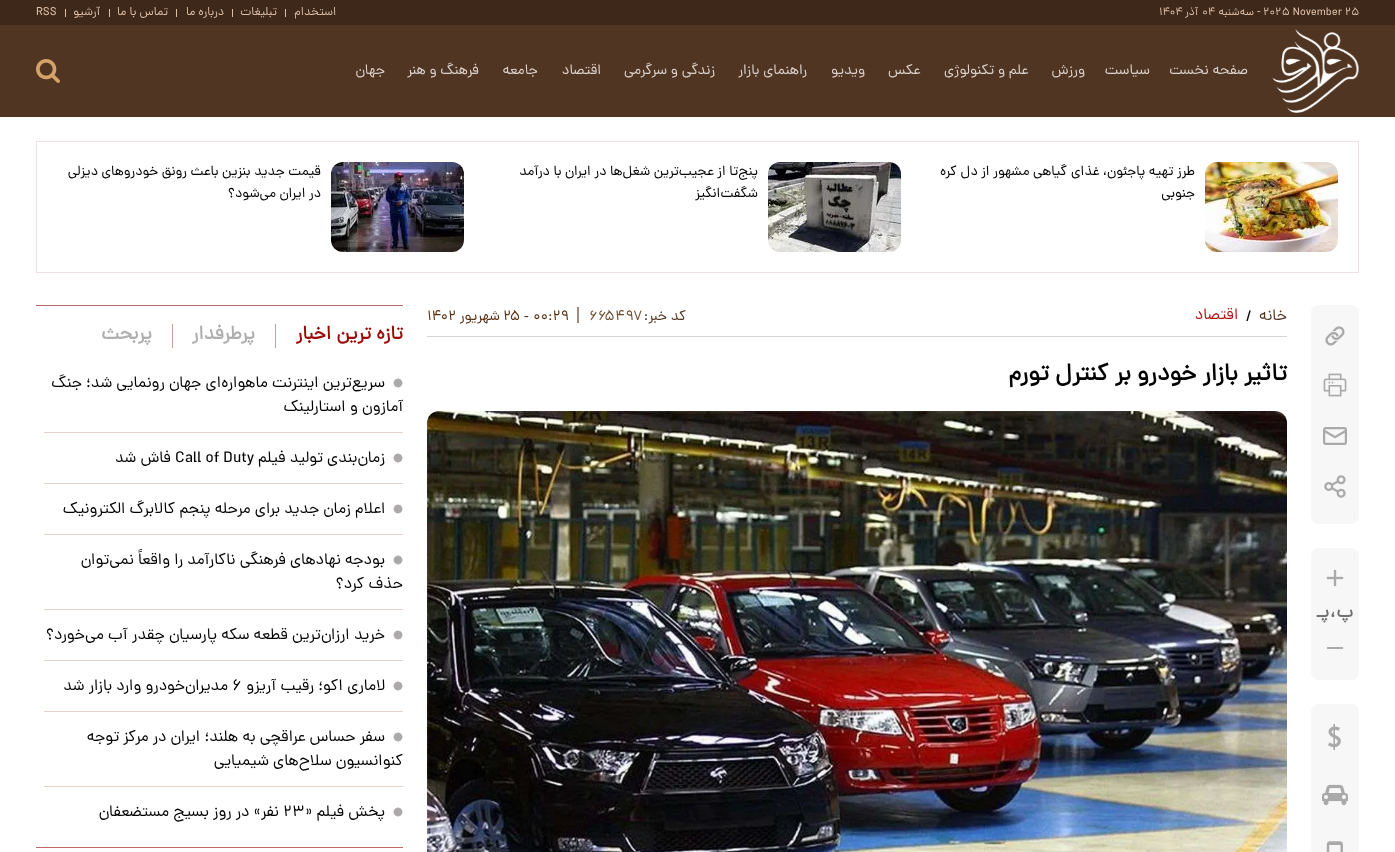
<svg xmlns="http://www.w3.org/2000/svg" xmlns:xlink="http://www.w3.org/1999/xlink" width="1395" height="852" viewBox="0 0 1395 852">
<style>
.cls-1{font:11.25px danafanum;fill:#ddbfa9}
.cls-2{font:11.25px danafanum;direction:rtl;fill:#ddbfa9}
.cls-3{font:12px danafanum;direction:rtl;fill:#ddbfa9}
.cls-4{font:12px danafanum;fill:#ddbfa9}
.cls-5{font:14.5px danafanum;direction:rtl;fill:#dbd2cd}
.cls-6{font:13.9px danafanum;direction:rtl;fill:#000000}
.cls-7{font:bold 18px danafanum;direction:rtl;fill:#717171}
.cls-8{font:bold 18px danafanum;fill:#717171}
.cls-9{font:16px danafanum;direction:rtl;fill:#513523}
.cls-10{font:16px danafanum;fill:#000000}
.cls-11{font:16px danafanum;direction:rtl;fill:#b41416}
.cls-12{font:14.5px danafanum;direction:rtl;fill:#513523}
.cls-13{font:14.5px danafanum;fill:#6e4d31}
.cls-14{font:14.5px danafanum;fill:#5a3111}
.cls-15{font:14.5px danafanum;direction:rtl;fill:#5a3111}
.cls-16{font:bold 24px danafanum;direction:rtl;fill:#000000}
.cls-17{font:bold 19.25px danafanum;direction:rtl;fill:#9b0b0b}
.cls-18{font:bold 19.25px danafanum;direction:rtl;fill:#afafaf}
.cls-19{font:16px danafanum;direction:rtl;fill:#000000}
</style>
<rect width="100%" height="100%" fill="#ffffff"/>
<rect fill="#3e2819" x="0" y="0" width="1395" height="25"/>
<rect fill="#ddbfa9" x="285" y="9" width="1" height="8"/>
<rect fill="#ddbfa9" x="232" y="9" width="1" height="8"/>
<rect fill="#ddbfa9" x="176" y="9" width="1" height="8"/>
<rect fill="#ddbfa9" x="109" y="9" width="1" height="8"/>
<rect fill="#ddbfa9" x="65" y="9" width="1" height="8"/>
<rect fill="#513523" x="0" y="25" width="1395" height="92"/>
<image xlink:href="image0.png" x="1272" y="29" width="87" height="84"/>
<image xlink:href="image1.png" x="36" y="59" width="24" height="24"/>
<rect fill="none" stroke="#efe0e3" x="36.5" y="141.5" width="1322" height="131"/>
<image xlink:href="image2.png" x="1205" y="162" width="133" height="90"/>
<image xlink:href="image3.png" x="768" y="162" width="133" height="90"/>
<image xlink:href="image4.png" x="331" y="162" width="133" height="90"/>
<rect fill="#f7f7f7" x="1311" y="305" width="48" height="219" rx="8"/>
<image xlink:href="image5.png" x="1325" y="326" width="20" height="20"/>
<image xlink:href="image6.png" x="1323" y="373" width="24" height="24"/>
<image xlink:href="image7.png" x="1323" y="427" width="24" height="18"/>
<image xlink:href="image8.png" x="1324" y="475" width="22" height="23"/>
<rect fill="#f7f7f7" x="1311" y="548" width="48" height="132" rx="8"/>
<image xlink:href="image9.png" x="1326" y="569" width="18" height="18"/>
<rect fill="#aaaaaa" x="1327" y="647" width="16" height="2"/>
<rect fill="#f7f7f7" x="1311" y="704" width="48" height="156" rx="8"/>
<image xlink:href="image10.png" x="1328" y="724" width="13" height="26"/>
<image xlink:href="image11.png" x="1322" y="784" width="26" height="22"/>
<image xlink:href="image12.png" x="1326" y="841" width="17" height="11"/>
<rect fill="#d4d4d4" x="427" y="336" width="860" height="1"/>
<rect fill="#9f8c7b" x="577" y="307" width="2" height="16"/>
<image xlink:href="image13.png" x="427" y="411" width="860" height="441"/>
<rect fill="#be6a68" x="36" y="305" width="367" height="1"/>
<rect fill="#d19c9c" x="275" y="324" width="1" height="24"/>
<rect fill="#d19c9c" x="172" y="324" width="1" height="24"/>
<rect fill="#e4d3c9" x="44" y="432" width="359" height="1"/>
<image xlink:href="image14.png" x="393" y="378" width="10" height="10"/>
<rect fill="#e4d3c9" x="44" y="483" width="359" height="1"/>
<image xlink:href="image14.png" x="393" y="453" width="10" height="10"/>
<rect fill="#e4d3c9" x="44" y="534" width="359" height="1"/>
<image xlink:href="image14.png" x="393" y="504" width="10" height="10"/>
<rect fill="#e4d3c9" x="44" y="609" width="359" height="1"/>
<image xlink:href="image14.png" x="393" y="555" width="10" height="10"/>
<rect fill="#e4d3c9" x="44" y="660" width="359" height="1"/>
<image xlink:href="image14.png" x="393" y="630" width="10" height="10"/>
<rect fill="#e4d3c9" x="44" y="711" width="359" height="1"/>
<image xlink:href="image14.png" x="393" y="681" width="10" height="10"/>
<rect fill="#e4d3c9" x="44" y="786" width="359" height="1"/>
<image xlink:href="image14.png" x="393" y="732" width="10" height="10"/>
<image xlink:href="image14.png" x="393" y="807" width="10" height="10"/>
<rect fill="#be6a68" x="36" y="847" width="367" height="1"/>
<text class="cls-1" x="1263" y="15">2025 November 25</text>
<text class="cls-1" x="1257" y="15">-</text>
<text class="cls-2" x="1254" y="15">سه‌شنبه</text>
<text class="cls-1" x="1202" y="15">۰۴</text>
<text class="cls-2" x="1198" y="15">آذر</text>
<text class="cls-1" x="1159" y="15">۱۴۰۴</text>
<text class="cls-3" x="336" y="15">استخدام</text>
<text class="cls-3" x="277" y="15">تبلیغات</text>
<text class="cls-3" x="224" y="15">درباره ما</text>
<text class="cls-3" x="168" y="15">تماس با ما</text>
<text class="cls-3" x="100" y="15">آرشیو</text>
<text class="cls-4" x="36" y="15">RSS</text>
<text class="cls-5" x="1248" y="74">صفحه نخست</text>
<text class="cls-5" x="1150" y="74">سیاست</text>
<text class="cls-5" x="1085" y="74">ورزش</text>
<text class="cls-5" x="1029" y="74">علم و تکنولوژی</text>
<text class="cls-5" x="921" y="74">عکس</text>
<text class="cls-5" x="865" y="74">ویدیو</text>
<text class="cls-5" x="807" y="74">راهنمای بازار</text>
<text class="cls-5" x="715" y="74">زندگی و سرگرمی</text>
<text class="cls-5" x="601" y="74">اقتصاد</text>
<text class="cls-5" x="538" y="74">جامعه</text>
<text class="cls-5" x="479" y="74">فرهنگ و هنر</text>
<text class="cls-5" x="385" y="74">جهان</text>
<text class="cls-6"><tspan x="1195" y="175">طرز تهیه پاجئون، غذای گیاهی مشهور از دل کره</tspan><tspan x="1195" y="197">جنوبی</tspan></text>
<text class="cls-6"><tspan x="758" y="175">پنج‌تا از عجیب‌ترین شغل‌ها در ایران با درآمد</tspan><tspan x="758" y="197">شگفت‌انگیز</tspan></text>
<text class="cls-6"><tspan x="321" y="175">قیمت جدید بنزین باعث رونق خودروهای دیزلی</tspan><tspan x="321" y="197">در ایران می‌شود؟</tspan></text>
<text class="cls-7" x="1353" y="617">پ</text>
<text class="cls-8" x="1330" y="617">،</text>
<text class="cls-7" x="1329" y="617">پـ</text>
<text class="cls-9" x="1287" y="320">خانه</text>
<text class="cls-10" x="1246" y="321">/</text>
<text class="cls-11" x="1238" y="319">اقتصاد</text>
<text class="cls-12" x="686" y="320">کد خبر:</text>
<text class="cls-13" x="589" y="320">۶۶۵۴۹۷</text>
<text class="cls-14" x="533" y="320">۰۰:۲۹</text>
<text class="cls-14" x="524" y="321">-</text>
<text class="cls-14" x="503" y="320">۲۵</text>
<text class="cls-15" x="500" y="320">شهریور</text>
<text class="cls-14" x="427" y="320">۱۴۰۲</text>
<text class="cls-16" x="1287" y="380">تاثیر بازار خودرو بر کنترل تورم</text>
<text class="cls-17" x="403" y="339">تازه ترین اخبار</text>
<text class="cls-18" x="255" y="339">پرطرفدار</text>
<text class="cls-18" x="152" y="339">پربحث</text>
<text class="cls-19" x="385" y="387">سریع‌ترین اینترنت ماهواره‌ای جهان رونمایی شد؛ جنگ</text>
<text class="cls-19" x="403" y="411">آمازون و استارلینک</text>
<text class="cls-19" x="385" y="462">زمان‌بندی تولید فیلم</text>
<text class="cls-10" x="175" y="462">Call of Duty</text>
<text class="cls-19" x="171" y="462">فاش شد</text>
<text class="cls-19" x="385" y="513">اعلام زمان جدید برای مرحله پنجم کالابرگ الکترونیک</text>
<text class="cls-19" x="385" y="564">بودجه نهادهای فرهنگی ناکارآمد را واقعاً نمی‌توان</text>
<text class="cls-19" x="403" y="588">حذف کرد؟</text>
<text class="cls-19" x="385" y="639">خرید ارزان‌ترین قطعه سکه پارسیان چقدر آب می‌خورد؟</text>
<text class="cls-19" x="385" y="690">لاماری اکو؛ رقیب آریزو</text>
<text class="cls-10" x="232" y="690">۶</text>
<text class="cls-19" x="228" y="690">مدیران‌خودرو وارد بازار شد</text>
<text class="cls-19" x="385" y="741">سفر حساس عراقچی به هلند؛ ایران در مرکز توجه</text>
<text class="cls-19" x="403" y="765">کنوانسیون سلاح‌های شیمیایی</text>
<text class="cls-19" x="385" y="816">پخش فیلم «</text>
<text class="cls-10" x="283" y="816">۲۳</text>
<text class="cls-19" x="279" y="816">نفر» در روز بسیج مستضعفان</text>
</svg>
